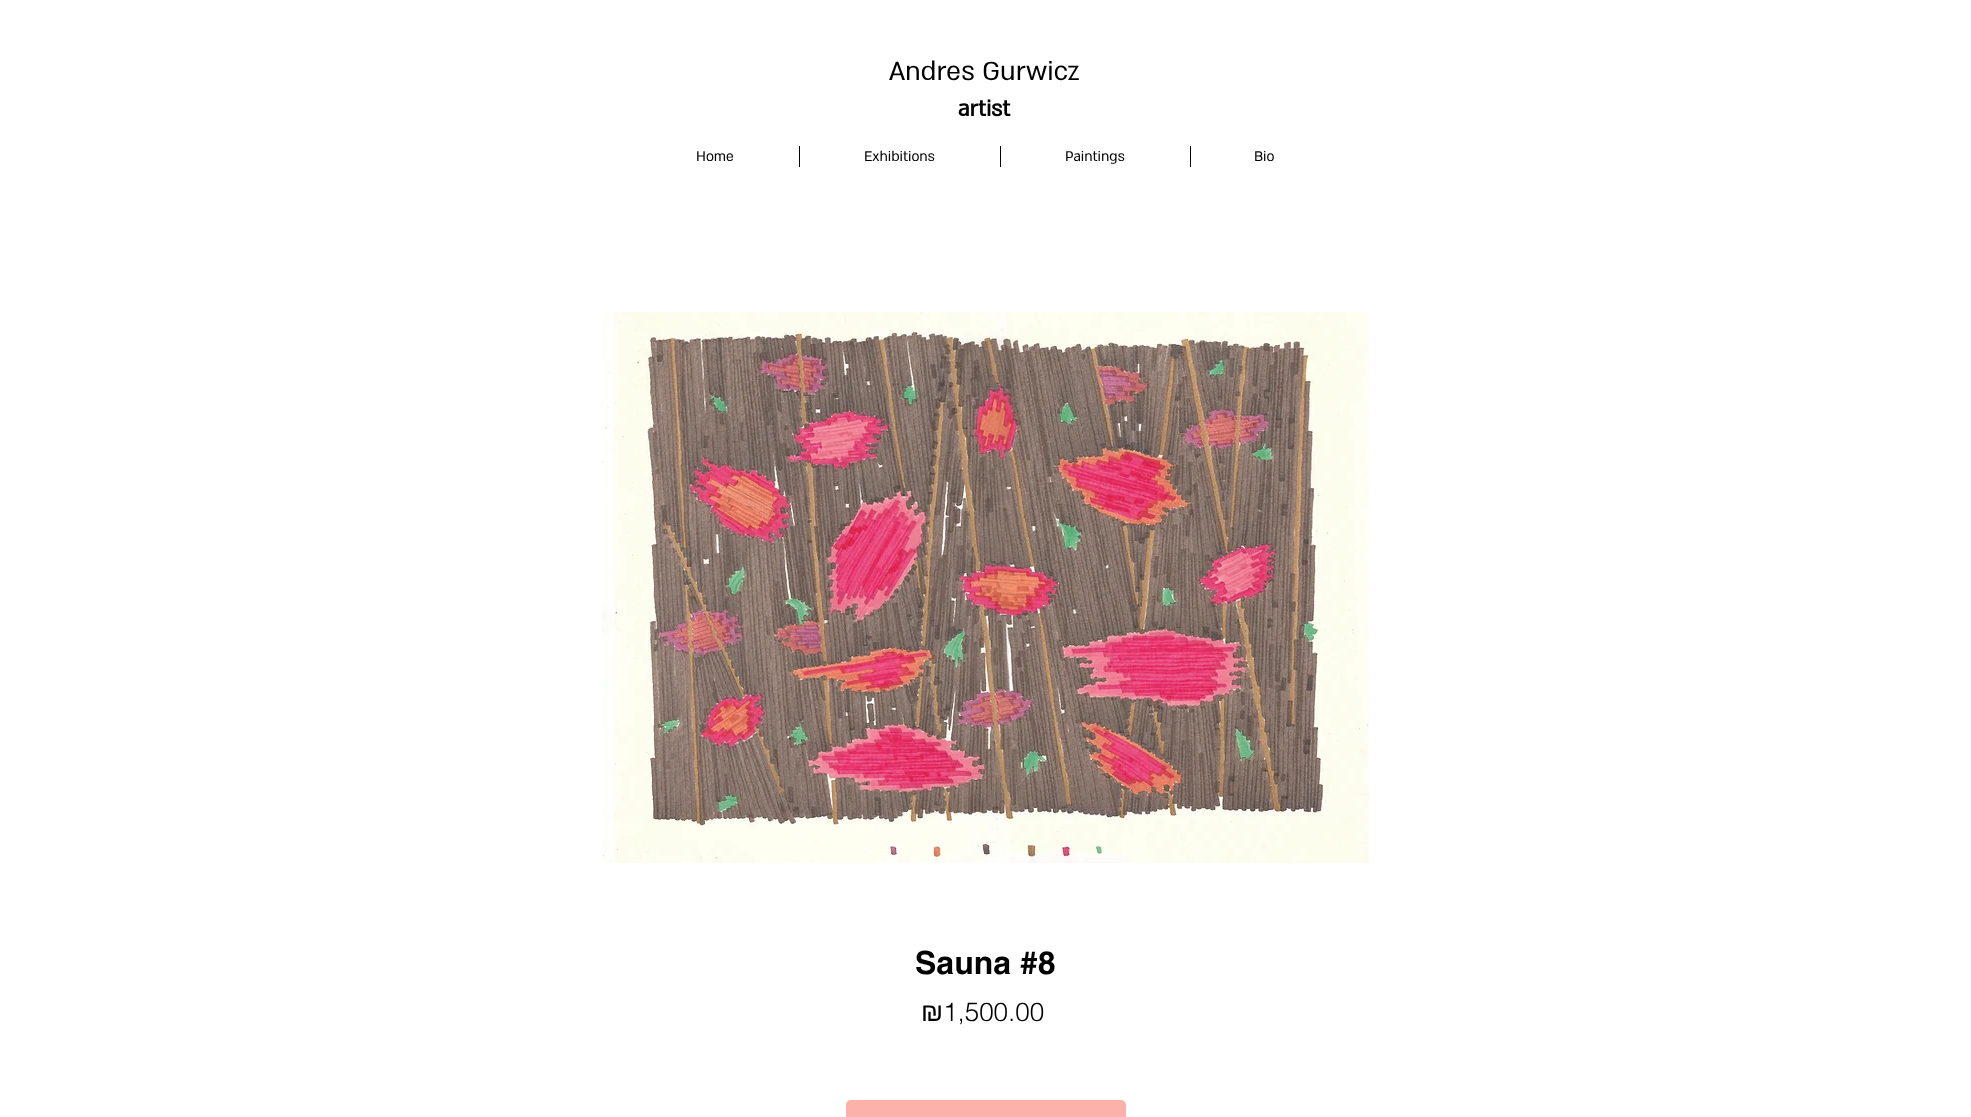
<svg xmlns="http://www.w3.org/2000/svg" xmlns:xlink="http://www.w3.org/1999/xlink" width="1971" height="1117" viewBox="0 0 1971 1117">
<style>
.cls-1{font:30px 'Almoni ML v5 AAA';fill:#000000}
.cls-2{font:bold 25px 'Almoni ML v5 AAA';fill:#000000}
.cls-3{font:16px 'Almoni ML v5 AAA';fill:#000000}
.cls-4{font:bold 32px helvetica;fill:#000000}
.cls-5{font:26px Liberation Sans;fill:#000000}
.cls-6{font:300 26px helvetica;fill:#000000}
</style>
<rect width="100%" height="100%" fill="#ffffff"/>
<rect fill="#000000" x="799" y="146" width="1" height="21"/>
<rect fill="#000000" x="1000" y="146" width="1" height="21"/>
<rect fill="#000000" x="1190" y="146" width="1" height="21"/>
<image xlink:href="image0.png" x="602" y="312" width="767" height="551"/>
<rect fill="#fcb2ab" x="846" y="1100" width="280" height="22" rx="5"/>
<text class="cls-1" x="889" y="80">Andres Gurwicz</text>
<text class="cls-2" x="958" y="116">artist</text>
<text class="cls-3" x="696" y="161">Home</text>
<text class="cls-3" x="864" y="161">Exhibitions</text>
<text class="cls-3" x="1065" y="161">Paintings</text>
<text class="cls-3" x="1254" y="161">Bio</text>
<text class="cls-4" x="915" y="974">Sauna #8</text>
<text class="cls-5" x="921" y="1021">₪</text>
<text class="cls-6" x="943" y="1021">1,500.00</text>
</svg>
